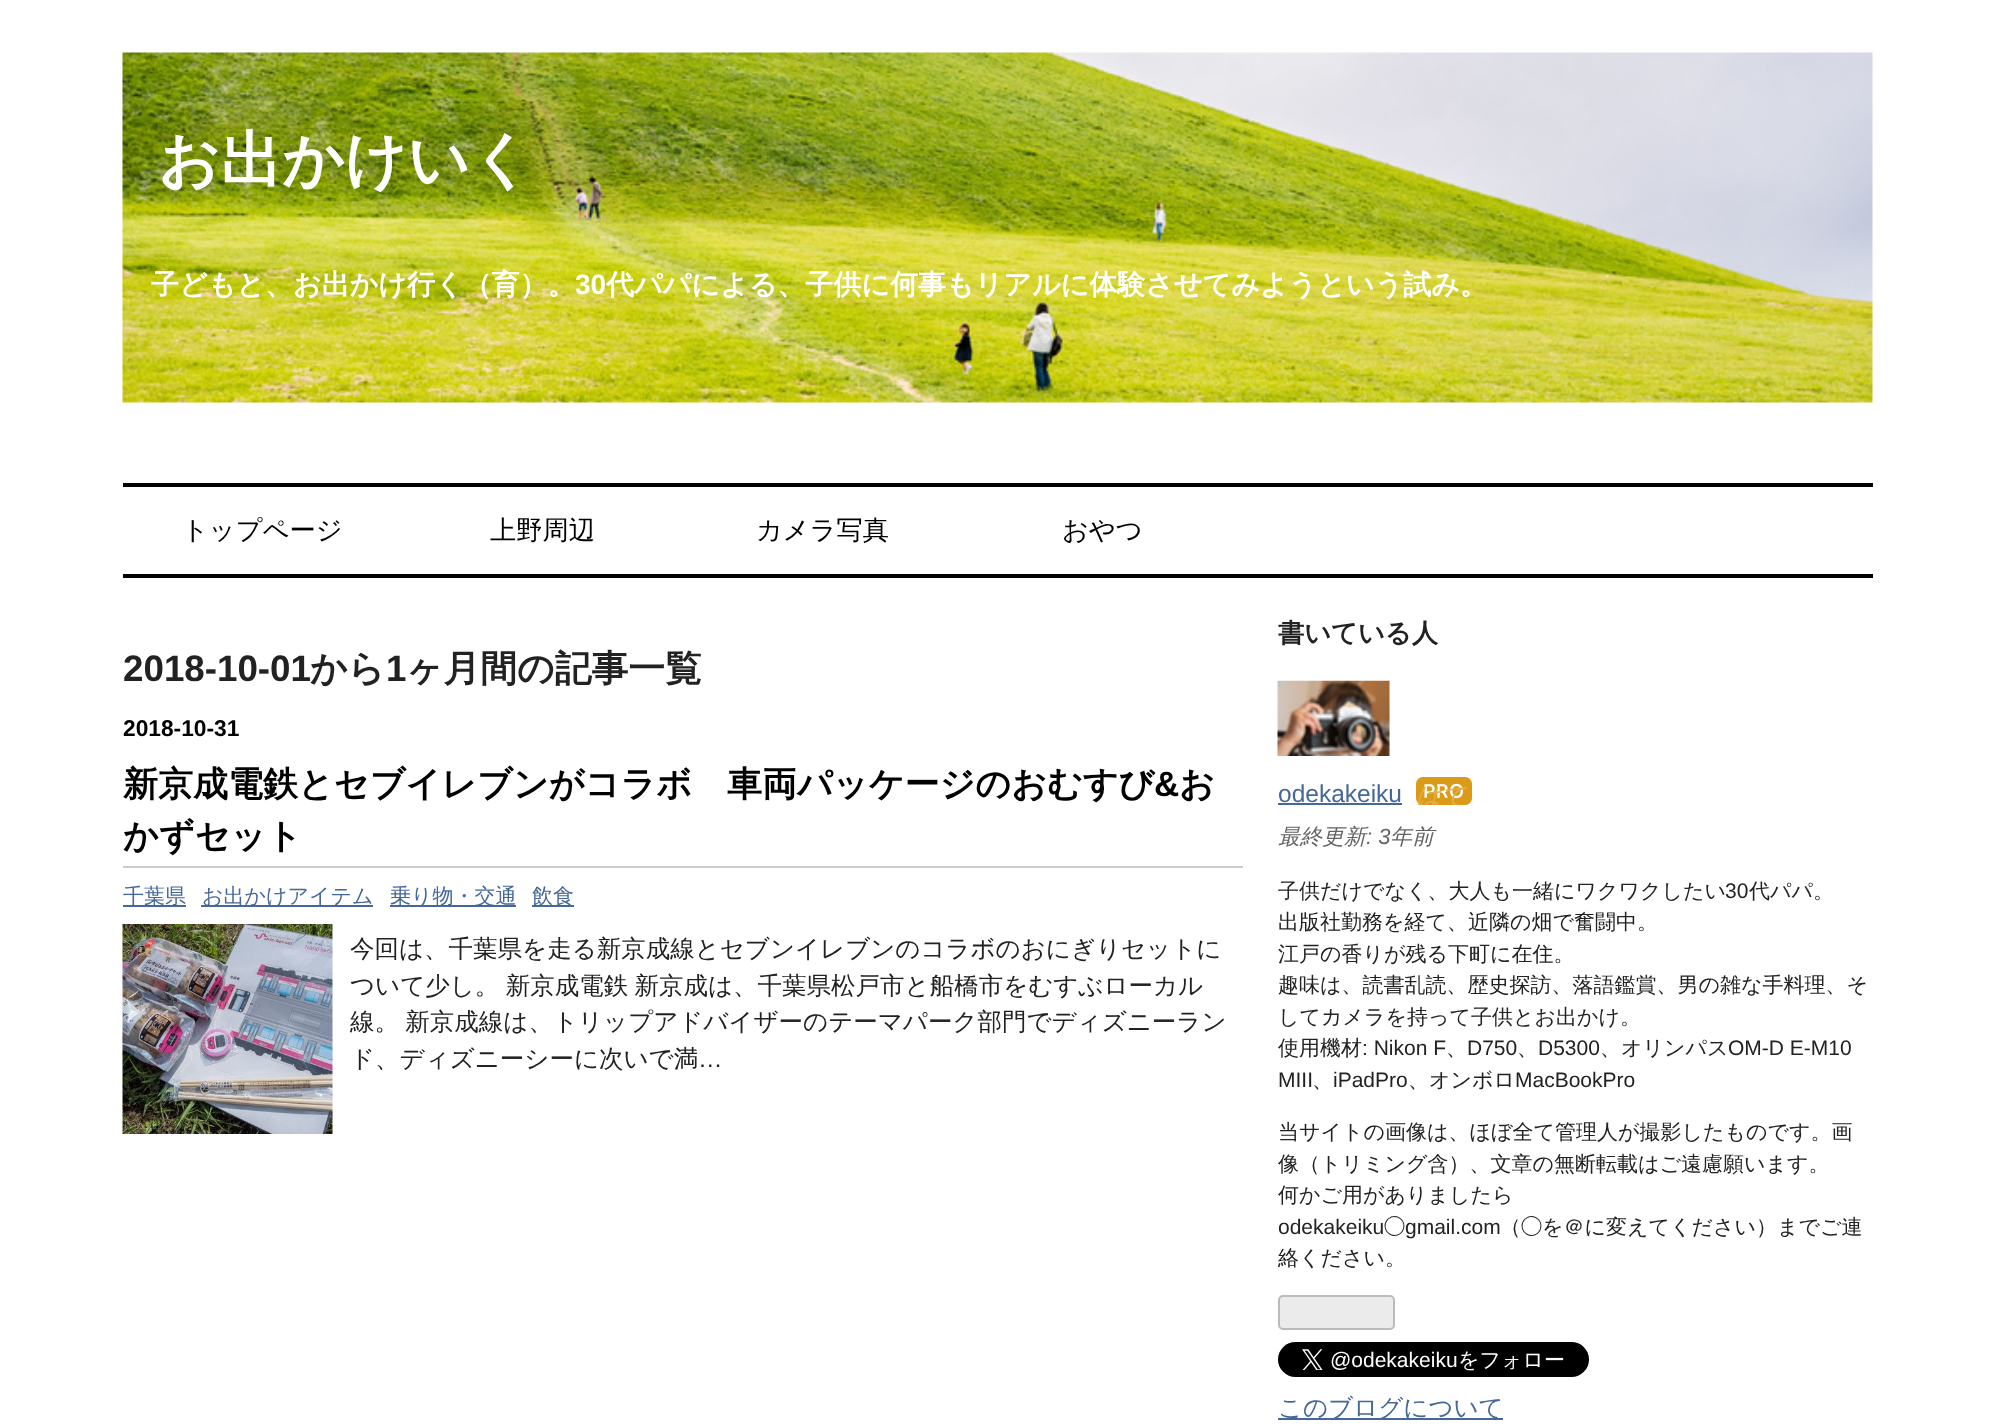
<svg xmlns="http://www.w3.org/2000/svg" xmlns:xlink="http://www.w3.org/1999/xlink" width="1994" height="1427" viewBox="0 0 1994 1427">
<style>
.cls-1{font:bold 61.25px WenQuanYi Zen Hei;fill:#ffffff}
.cls-2{font:bold 28px WenQuanYi Zen Hei;fill:#ffffff}
.cls-3{font:bold 28px Liberation Sans;fill:#ffffff}
.cls-4{font:500 26.25px WenQuanYi Zen Hei;fill:#000000}
.cls-5{font:bold 36.75px Liberation Sans;fill:#222222}
.cls-6{font:bold 36.75px WenQuanYi Zen Hei;fill:#222222}
.cls-7{font:bold 22.75px Liberation Sans;fill:#000000}
.cls-8{font:bold 35px WenQuanYi Zen Hei;fill:#000000}
.cls-9{font:bold 35px Liberation Sans;fill:#000000}
.cls-10{font:500 21px WenQuanYi Zen Hei;fill:#456898}
.cls-11{font:500 24.5px WenQuanYi Zen Hei;fill:#222222}
.cls-12{font:24.5px Liberation Sans;fill:#222222}
.cls-13{font:bold 26.25px WenQuanYi Zen Hei;fill:#222222}
.cls-14{font:24.5px Liberation Sans;fill:#456898}
.cls-15{font:italic 500 24.5px WenQuanYi Zen Hei;fill:#e2b049}
.cls-16{font:italic 500 22px WenQuanYi Zen Hei;fill:#646464}
.cls-17{font:italic 22px Liberation Sans;fill:#646464}
.cls-18{font:500 21px WenQuanYi Zen Hei;fill:#222222}
.cls-19{font:21px Liberation Sans;fill:#222222}
.cls-20{font:21px IPAPGothic;fill:#222222}
.cls-21{font:21px Liberation Sans;fill:#ffffff}
.cls-22{font:500 21px WenQuanYi Zen Hei;fill:#ffffff}
.cls-23{font:500 24.5px WenQuanYi Zen Hei;fill:#456898}
</style>
<defs>
<clipPath id="clip1"><rect x="1416" y="777" width="56" height="28"/></clipPath>
</defs>
<rect width="100%" height="100%" fill="#ffffff"/>
<image xlink:href="image0.png" x="122" y="52" width="1751" height="351"/>
<rect fill="#000000" x="123" y="483" width="1750" height="4"/>
<rect fill="#000000" x="123" y="574" width="1750" height="4"/>
<rect fill="#cccccc" x="123" y="866" width="1120" height="2"/>
<rect fill="#456898" x="123" y="905" width="63" height="2"/>
<rect fill="#456898" x="201" y="905" width="172" height="2"/>
<rect fill="#456898" x="390" y="905" width="126" height="2"/>
<rect fill="#456898" x="532" y="905" width="42" height="2"/>
<image xlink:href="image1.png" x="122" y="924" width="211" height="210"/>
<image xlink:href="image2.png" x="1277" y="680" width="113" height="76"/>
<rect fill="#456898" x="1278" y="803" width="124" height="2"/>
<image xlink:href="image3.png" x="1416" y="777" width="56" height="28"/>
<rect fill="#ebebeb" stroke="#bbbbbb" stroke-width="2" x="1279" y="1296" width="115" height="33" rx="4"/>
<rect fill="#000000" x="1278" y="1342" width="311" height="35" rx="17.5"/>
<image xlink:href="image4.png" x="1302" y="1349" width="21" height="21"/>
<rect fill="#456898" x="1278" y="1418" width="225" height="2"/>
<text class="cls-1" x="158" y="181">お出かけいく</text>
<text class="cls-2" x="151" y="294">子どもと、お出かけ行く（育）。</text>
<text class="cls-3" x="575" y="294">30</text>
<text class="cls-2" x="606" y="294">代パパによる、子供に何事もリアルに体験させてみようという試み。</text>
<text class="cls-4" x="182" y="539">トップページ</text>
<text class="cls-4" x="490" y="539">上野周辺</text>
<text class="cls-4" x="756" y="539">カメラ写真</text>
<text class="cls-4" x="1062" y="539">おやつ</text>
<text class="cls-5" x="123" y="681">2018-10-01</text>
<text class="cls-6" x="310" y="681">から</text>
<text class="cls-5" x="386" y="681">1</text>
<text class="cls-6" x="406" y="681">ヶ月間の記事一覧</text>
<text class="cls-7" x="123" y="736">2018-10-31</text>
<text class="cls-8" x="123" y="796">新京成電鉄とセブイレブンがコラボ　車両パッケージのおむすび</text>
<text class="cls-9" x="1154" y="796">&amp;</text>
<text class="cls-8" x="1179" y="796">お</text>
<text class="cls-8" x="123" y="848">かずセット</text>
<text class="cls-10" x="123" y="903">千葉県</text>
<text class="cls-10" x="202" y="903">お出かけアイテム</text>
<text class="cls-10" x="390" y="903">乗り物・交通</text>
<text class="cls-10" x="532" y="903">飲食</text>
<text class="cls-11"><tspan x="350" y="957">今回は、千葉県を走る新京成線とセブンイレブンのコラボのおにぎりセットに</tspan><tspan x="350" y="994" word-spacing="-1">ついて少し。 新京成電鉄 新京成は、千葉県松戸市と船橋市をむすぶローカル</tspan><tspan x="350" y="1030" word-spacing="-1">線。 新京成線は、トリップアドバイザーのテーマパーク部門でディズニーラン</tspan><tspan x="350" y="1067">ド、ディズニーシーに次いで満</tspan></text>
<text class="cls-12" x="698" y="1067">…</text>
<text class="cls-13" x="1278" y="642">書いている人</text>
<text class="cls-14" x="1278" y="802">odekakeiku</text>
<g clip-path="url(#clip1)">
<text class="cls-15" x="1416" y="804">はて</text>
</g>
<text class="cls-16" x="1278" y="844">最終更新</text>
<text class="cls-17" x="1366" y="844">: 3</text>
<text class="cls-16" x="1390" y="844">年前</text>
<text class="cls-18" x="1278" y="898">子供だけでなく、大人も一緒にワクワクしたい</text>
<text class="cls-19" x="1725" y="898">30</text>
<text class="cls-18" x="1749" y="898">代パパ。</text>
<text class="cls-18"><tspan x="1278" y="929">出版社勤務を経て、近隣の畑で奮闘中。</tspan><tspan x="1278" y="961">江戸の香りが残る下町に在住。</tspan><tspan x="1278" y="992">趣味は、読書乱読、歴史探訪、落語鑑賞、男の雑な手料理、そ</tspan><tspan x="1278" y="1024">してカメラを持って子供とお出かけ。</tspan><tspan x="1278" y="1055">使用機材</tspan></text>
<text class="cls-19" x="1362" y="1055">: Nikon F</text>
<text class="cls-18" x="1446" y="1055">、</text>
<text class="cls-19" x="1467" y="1055">D750</text>
<text class="cls-18" x="1517" y="1055">、</text>
<text class="cls-19" x="1538" y="1055">D5300</text>
<text class="cls-18" x="1600" y="1055">、オリンパス</text>
<text class="cls-19" x="1728" y="1055">OM-D E-M10</text>
<text class="cls-19" x="1278" y="1087">MIII</text>
<text class="cls-19" x="1333" y="1087">iPadPro</text>
<text class="cls-18" x="1408" y="1087">、オンボロ</text>
<text class="cls-19" x="1515" y="1087">MacBookPro</text>
<text class="cls-18" x="1312" y="1087">、</text>
<text class="cls-18"><tspan x="1278" y="1139">当サイトの画像は、ほぼ全て管理人が撮影したものです。画</tspan><tspan x="1278" y="1171">像（トリミング含）、文章の無断転載はご遠慮願います。</tspan><tspan x="1278" y="1202">何かご用がありましたら</tspan></text>
<text class="cls-19" x="1278" y="1234">odekakeiku</text>
<text class="cls-20" x="1384" y="1234">◯</text>
<text class="cls-19" x="1405" y="1234">gmail.com</text>
<text class="cls-18" x="1500" y="1234">（</text>
<text class="cls-20" x="1521" y="1234">◯</text>
<text class="cls-18" x="1542" y="1234">を＠に変えてください）までご連</text>
<text class="cls-18" x="1278" y="1265">絡ください。</text>
<text class="cls-21" x="1330" y="1367">@odekakeiku</text>
<text class="cls-22" x="1458" y="1367">をフォロー</text>
<text class="cls-23" x="1278" y="1416">このブログについて</text>
</svg>
